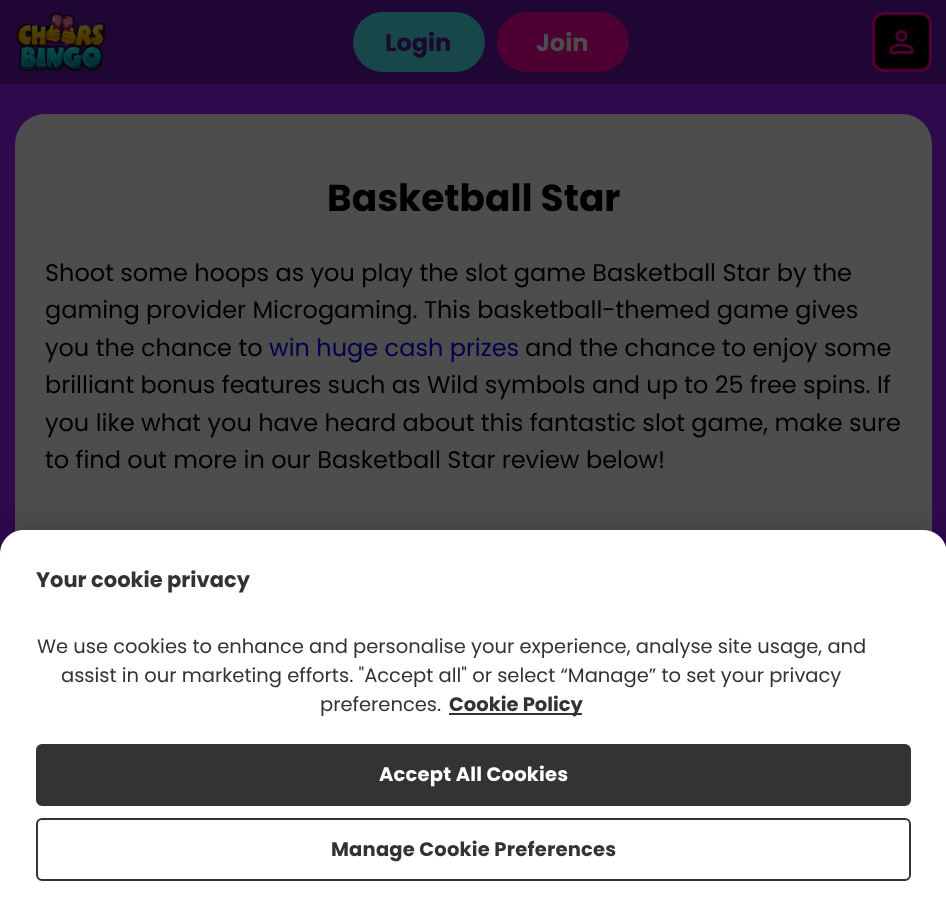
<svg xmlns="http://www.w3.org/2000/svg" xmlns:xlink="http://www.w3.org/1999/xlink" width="946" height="916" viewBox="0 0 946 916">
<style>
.cls-1{font:bold 24px Poppins;fill:#1e072c}
.cls-2{font:bold 24px Poppins;fill:#4d4d4d}
.cls-3{font:bold 37.5px Poppins;fill:#000000}
.cls-4{font:24px Poppins;fill:#000000}
.cls-5{font:24px Poppins;fill:#00004d}
.cls-6{font:bold 21px Poppins;fill:#333333}
.cls-7{font:19.5px Poppins;fill:#333333}
.cls-8{font:bold 19.5px Poppins;fill:#333333}
.cls-9{font:bold 19.5px Poppins;letter-spacing:0.2px;fill:#ffffff}
.cls-10{font:bold 19.5px Poppins;letter-spacing:0.2px;fill:#333333}
</style>
<rect width="100%" height="100%" fill="#2e094c"/>
<rect fill="#200635" x="0" y="0" width="946" height="84"/>
<image xlink:href="image0.png" x="16" y="12" width="90" height="60"/>
<rect fill="#174749" x="353" y="12" width="132" height="60" rx="30"/>
<rect fill="#4d0031" x="497" y="12" width="132" height="60" rx="30"/>
<rect fill="#4d0031" x="872" y="12" width="60" height="60" rx="12"/>
<rect fill="#000000" x="875" y="15" width="54" height="54" rx="9"/>
<image xlink:href="image1.png" x="889" y="30" width="25" height="24"/>
<rect fill="#4d4d4d" x="15" y="114" width="917" height="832" rx="30"/>
<rect fill="#000000" fill-opacity="0.2" filter="blur(13.5px)" x="0" y="530" width="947" height="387" rx="24"/>
<path fill="#ffffff" d="M24 530H923C936.5 530 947 540.5 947 554V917H0V554C0 540.5 10.5 530 24 530Z"/>
<rect fill="#333333" x="449" y="713" width="133" height="2"/>
<rect fill="#333333" stroke="#333333" stroke-width="2" x="37" y="745" width="873" height="60" rx="5"/>
<rect fill="none" stroke="#333333" stroke-width="2" x="37" y="819" width="873" height="61" rx="5"/>
<text class="cls-1" x="385" y="51">Login</text>
<text class="cls-2" x="536" y="51">Join</text>
<text class="cls-3" x="327" y="211">Basketball Star</text>
<text class="cls-4"><tspan x="45" y="281">Shoot some hoops as you play the slot game Basketball Star by the</tspan><tspan x="45" y="318">gaming provider Microgaming. This basketball-themed game gives</tspan><tspan x="45" y="356">you the chance to</tspan></text>
<text class="cls-5" x="269" y="356">win huge cash prizes</text>
<text class="cls-4" x="525" y="356">and the chance to enjoy some</text>
<text class="cls-4"><tspan x="45" y="393">brilliant bonus features such as Wild symbols and up to 25 free spins. If</tspan><tspan x="45" y="431">you like what you have heard about this fantastic slot game, make sure</tspan><tspan x="45" y="468">to find out more in our Basketball Star review below!</tspan></text>
<text class="cls-6" x="36" y="587">Your cookie privacy</text>
<text class="cls-7" x="37" y="653">We use cookies to enhance and personalise your experience, analyse site usage, and</text>
<text class="cls-7" x="61" y="682">assist in our marketing efforts. "Accept all" or select “Manage” to set your privacy</text>
<text class="cls-7" x="320" y="711">preferences.</text>
<text class="cls-8" x="449" y="711">Cookie Policy</text>
<text class="cls-9" x="379" y="781">Accept All Cookies</text>
<text class="cls-10" x="331" y="856">Manage Cookie Preferences</text>
</svg>
